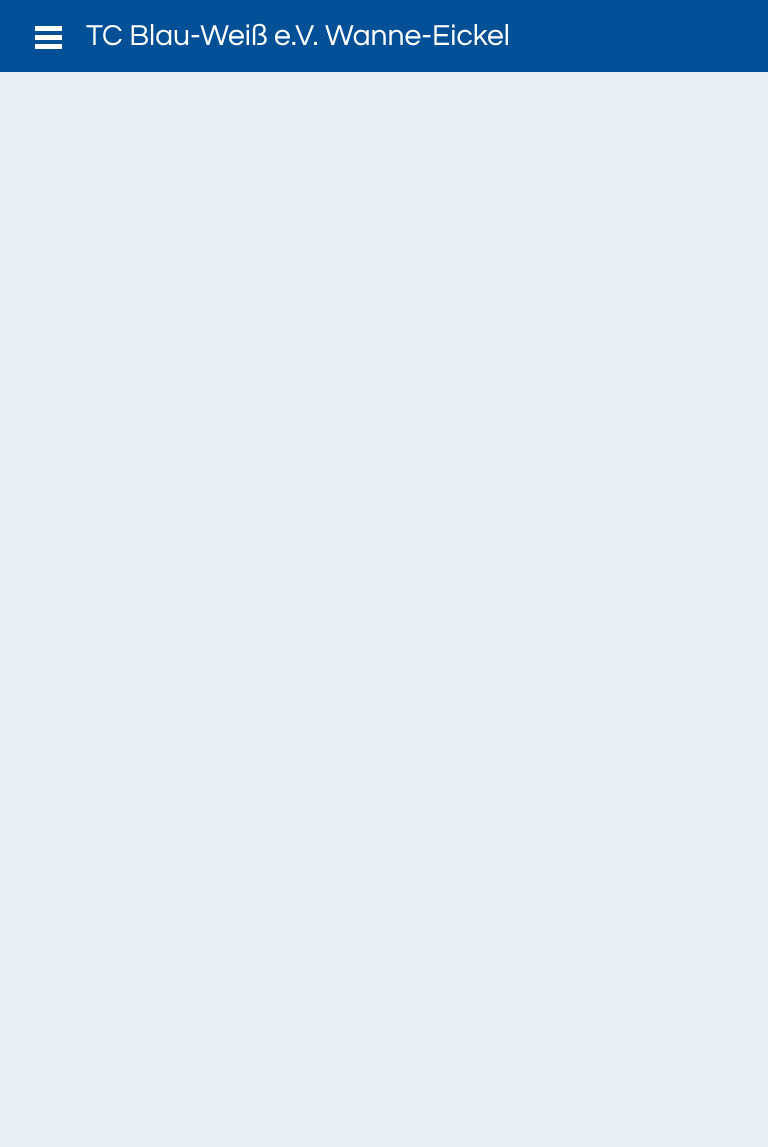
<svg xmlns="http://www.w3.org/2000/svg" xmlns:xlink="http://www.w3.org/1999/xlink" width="768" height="1147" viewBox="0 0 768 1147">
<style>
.cls-1{font:30px Questrial;fill:#ffffff}
</style>
<rect width="100%" height="100%" fill="#e6eef6"/>
<rect fill="#045097" x="0" y="0" width="768" height="72"/>
<rect fill="#ffffff" x="35" y="26" width="27" height="5"/>
<rect fill="#ffffff" x="35" y="35" width="27" height="5"/>
<rect fill="#ffffff" x="35" y="44" width="27" height="5"/>
<text class="cls-1" x="86" y="45">TC Blau-Weiß e.V. Wanne-Eickel</text>
</svg>
